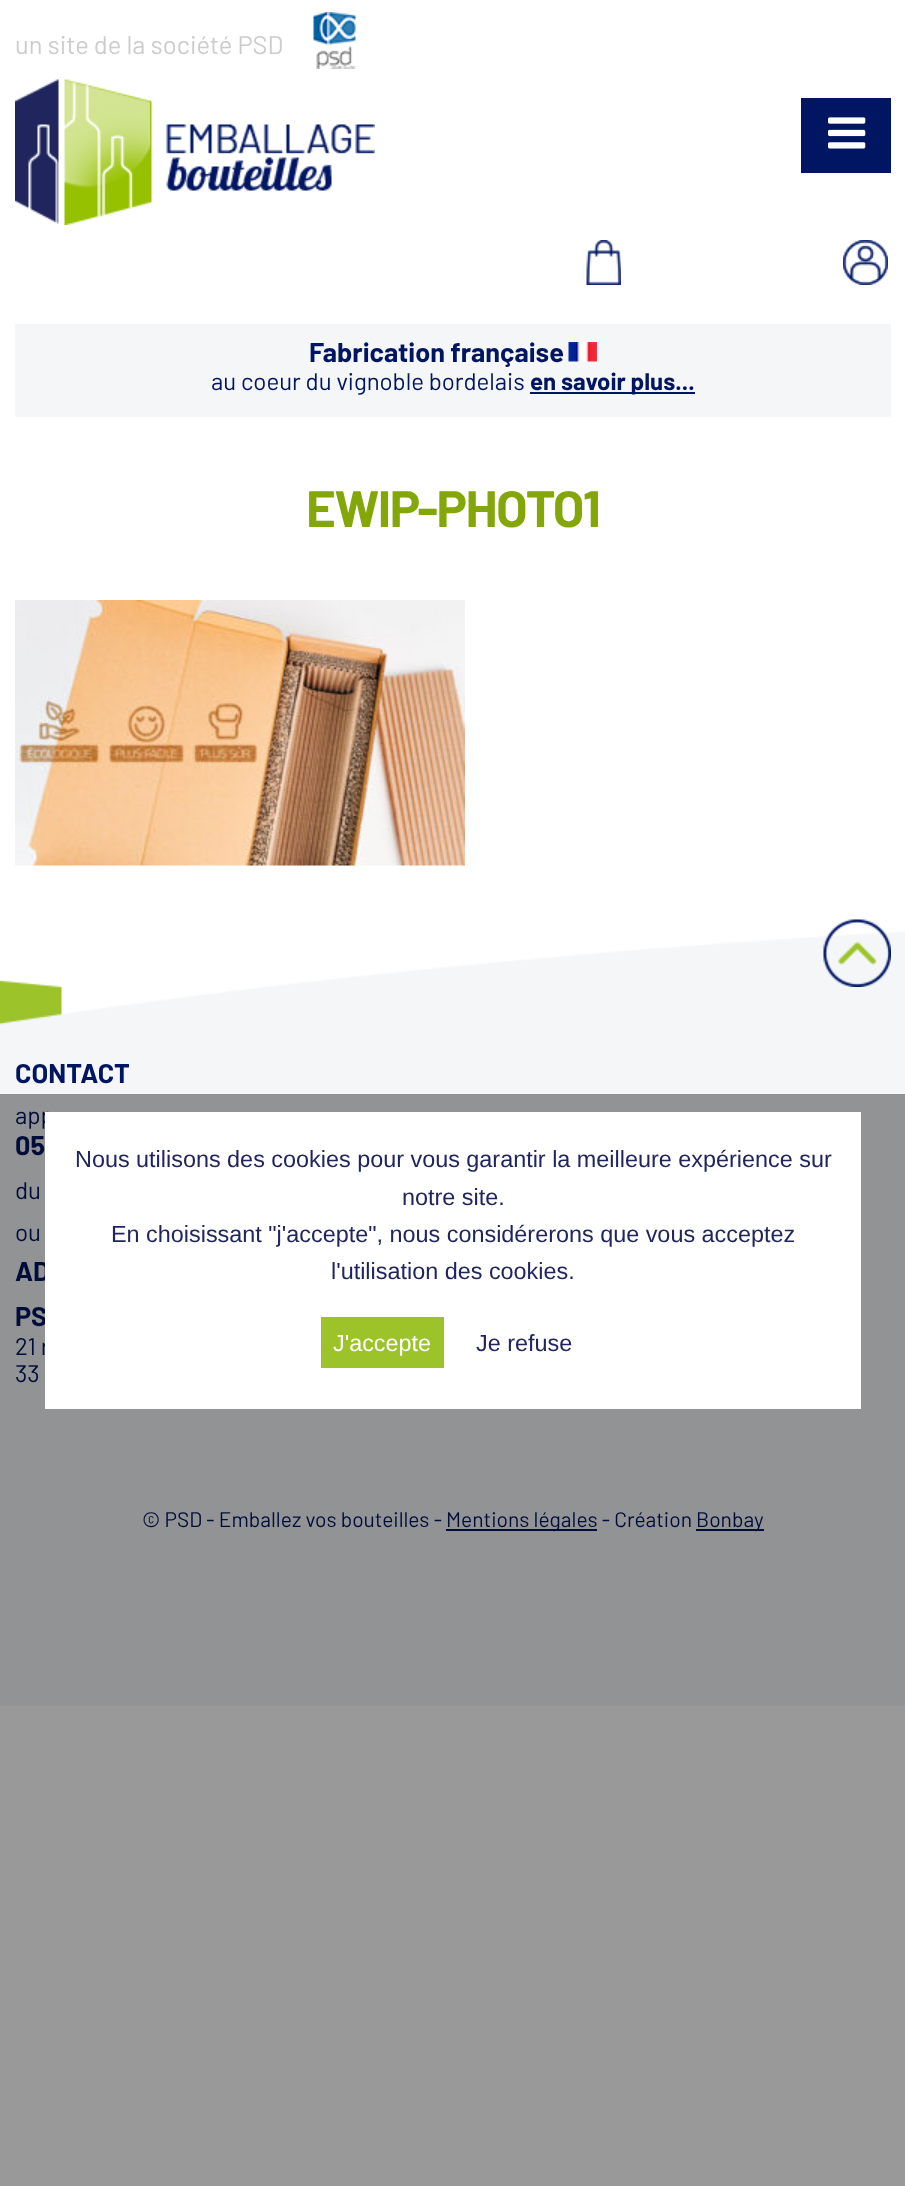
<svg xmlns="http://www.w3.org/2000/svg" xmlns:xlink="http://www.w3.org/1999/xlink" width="905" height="2186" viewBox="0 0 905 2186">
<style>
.cls-1{font:25.5px Barlow;fill:#cccccc}
.cls-2{font:bold 27px Barlow;fill:#001662}
.cls-3{font:24px Barlow;fill:#001662}
.cls-4{font:bold 24px Barlow;fill:#001662}
.cls-5{font:bold 51px Barlow;letter-spacing:-1.5px;fill:#83a608}
.cls-6{font:21px Barlow;fill:#001662}
.cls-7{font:23.4px Liberation Sans;fill:#20265d}
.cls-8{font:23.4px Liberation Sans;fill:#ffffff}
</style>
<rect width="100%" height="100%" fill="#ffffff"/>
<image xlink:href="image0.png" x="313" y="12" width="43" height="57"/>
<image xlink:href="image1.png" x="15" y="79" width="360" height="146"/>
<rect fill="#001662" x="801" y="98" width="90" height="75"/>
<image xlink:href="image2.png" x="828" y="117" width="38" height="32"/>
<image xlink:href="image3.png" x="586" y="240" width="35" height="45"/>
<image xlink:href="image4.png" x="843" y="240" width="45" height="45"/>
<rect fill="#f4f6f8" x="15" y="324" width="876" height="93"/>
<image xlink:href="image5.png" x="568" y="342" width="29" height="20"/>
<rect fill="#001662" x="530" y="392" width="165" height="2"/>
<image xlink:href="image6.png" x="15" y="600" width="450" height="266"/>
<image xlink:href="image7.png" x="0" y="931" width="905" height="775"/>
<image xlink:href="image8.png" x="823" y="919" width="68" height="68"/>
<rect fill="#001662" x="446" y="1529" width="151" height="2"/>
<rect fill="#001662" x="696" y="1529" width="68" height="2"/>
<text class="cls-1" x="15" y="54">un site de la société PSD</text>
<text class="cls-2" x="309" y="362">Fabrication française</text>
<text class="cls-3" x="211" y="390">au coeur du vignoble bordelais</text>
<text class="cls-4" x="530" y="390">en savoir plus...</text>
<text class="cls-5" x="306" y="527">EWIP-PHOTO1</text>
<text class="cls-2" x="15" y="1083">CONTACT</text>
<text class="cls-3" x="15" y="1124">app</text>
<text class="cls-2" x="15" y="1155">05</text>
<text class="cls-3"><tspan x="15" y="1199">du</tspan><tspan x="15" y="1241">ou</tspan></text>
<text class="cls-2"><tspan x="15" y="1281">AD</tspan><tspan x="15" y="1326">PS</tspan></text>
<text class="cls-3"><tspan x="15" y="1355">21 r</tspan><tspan x="15" y="1382">33</tspan></text>
<text class="cls-6" x="142" y="1527">© PSD - Emballez vos bouteilles -</text>
<text class="cls-6" x="446" y="1527">Mentions légales - Création</text>
<text class="cls-6" x="696" y="1527">Bonbay</text>
<rect fill="#000000" fill-opacity="0.4" x="0" y="1094" width="905" height="1092"/>
<rect fill="#ffffff" x="45" y="1112" width="816" height="297"/>
<text class="cls-7" x="75" y="1167">Nous utilisons des cookies pour vous garantir la meilleure expérience sur</text>
<text class="cls-7" x="402" y="1205">notre site.</text>
<text class="cls-7" x="111" y="1242">En choisissant "j'accepte", nous considérerons que vous acceptez</text>
<text class="cls-7" x="331" y="1279">l'utilisation des cookies.</text>
<rect fill="#9cc42a" x="321" y="1317" width="123" height="51"/>
<text class="cls-8" x="333" y="1351">J'accepte</text>
<text class="cls-7" x="476" y="1351">Je refuse</text>
</svg>
